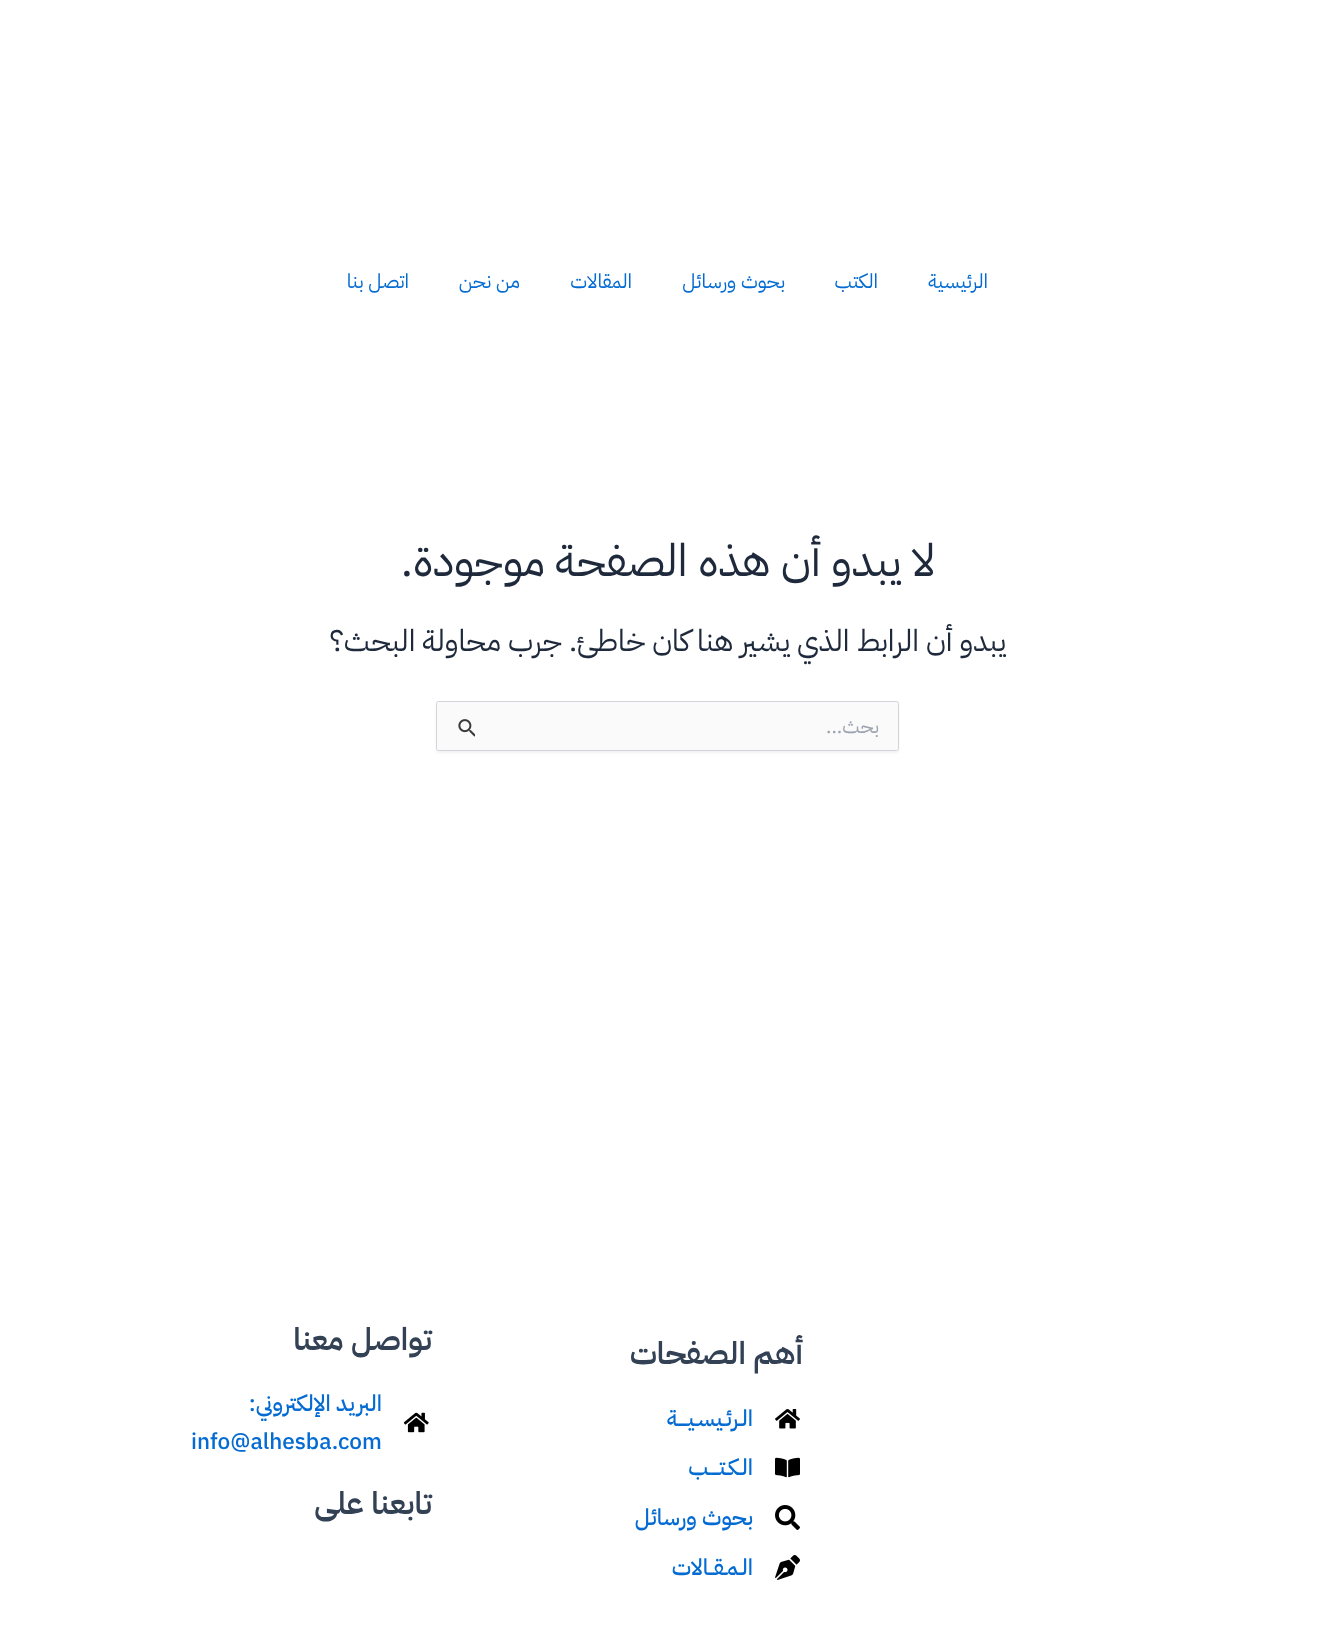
<svg xmlns="http://www.w3.org/2000/svg" xmlns:xlink="http://www.w3.org/1999/xlink" width="1334" height="1637" viewBox="0 0 1334 1637">
<style>
.cls-1{font:20px IBM Plex Sans Arabic;direction:rtl;fill:#046bd2}
.cls-2{font:45px IBM Plex Sans Arabic;direction:rtl;fill:#1e293b}
.cls-3{font:30px IBM Plex Sans Arabic;direction:rtl;fill:#1e293b}
.cls-4{font:20px IBM Plex Sans Arabic;direction:rtl;fill:#9ca3af}
.cls-5{font:600 31.25px IBM Plex Sans Arabic;direction:rtl;fill:#334155}
.cls-6{font:500 22.5px IBM Plex Sans Arabic;direction:rtl;fill:#046bd2}
.cls-7{font:500 22.5px IBM Plex Sans Arabic;fill:#046bd2}
</style>
<rect width="100%" height="100%" fill="#ffffff"/>
<rect fill="#000000" fill-opacity="0.05" filter="blur(1px)" x="436" y="703" width="463" height="50" rx="2.5"/>
<rect fill="#fafafa" stroke="#d1d5db" x="436.5" y="701.5" width="462" height="49" rx="2"/>
<image xlink:href="image0.png" x="458" y="719" width="17" height="18"/>
<image xlink:href="image1.png" x="775" y="1409" width="25" height="20"/>
<image xlink:href="image2.png" x="775" y="1457" width="25" height="21"/>
<image xlink:href="image3.png" x="775" y="1505" width="25" height="25"/>
<image xlink:href="image4.png" x="775" y="1555" width="25" height="25"/>
<image xlink:href="image5.png" x="404" y="1412" width="25" height="21"/>
<text class="cls-1" x="988" y="288">الرئيسية</text>
<text class="cls-1" x="878" y="288">الكتب</text>
<text class="cls-1" x="785" y="288">بحوث ورسائل</text>
<text class="cls-1" x="632" y="288">المقالات</text>
<text class="cls-1" x="520" y="288">من نحن</text>
<text class="cls-1" x="409" y="288">اتصل بنا</text>
<text class="cls-2" x="935" y="576">لا يبدو أن هذه الصفحة موجودة.</text>
<text class="cls-3" x="1006" y="651">يبدو أن الرابط الذي يشير هنا كان خاطئ. جرب محاولة البحث؟</text>
<text class="cls-4" x="879" y="733">بحث...</text>
<text class="cls-5" x="803" y="1364">أهم الصفحات</text>
<text class="cls-6" x="753" y="1426">الـرئـيسـيــــة</text>
<text class="cls-6" x="753" y="1475">الـكـتــــب</text>
<text class="cls-6" x="753" y="1525">بحوث ورسائل</text>
<text class="cls-6" x="753" y="1575">الـمـقــالات</text>
<text class="cls-5" x="432" y="1350">تواصل معنا</text>
<text class="cls-6" x="382" y="1411">البريد الإلكتروني:</text>
<text class="cls-7" x="191" y="1449">info@alhesba.com</text>
<text class="cls-5" x="432" y="1514">تابعنا على</text>
</svg>
